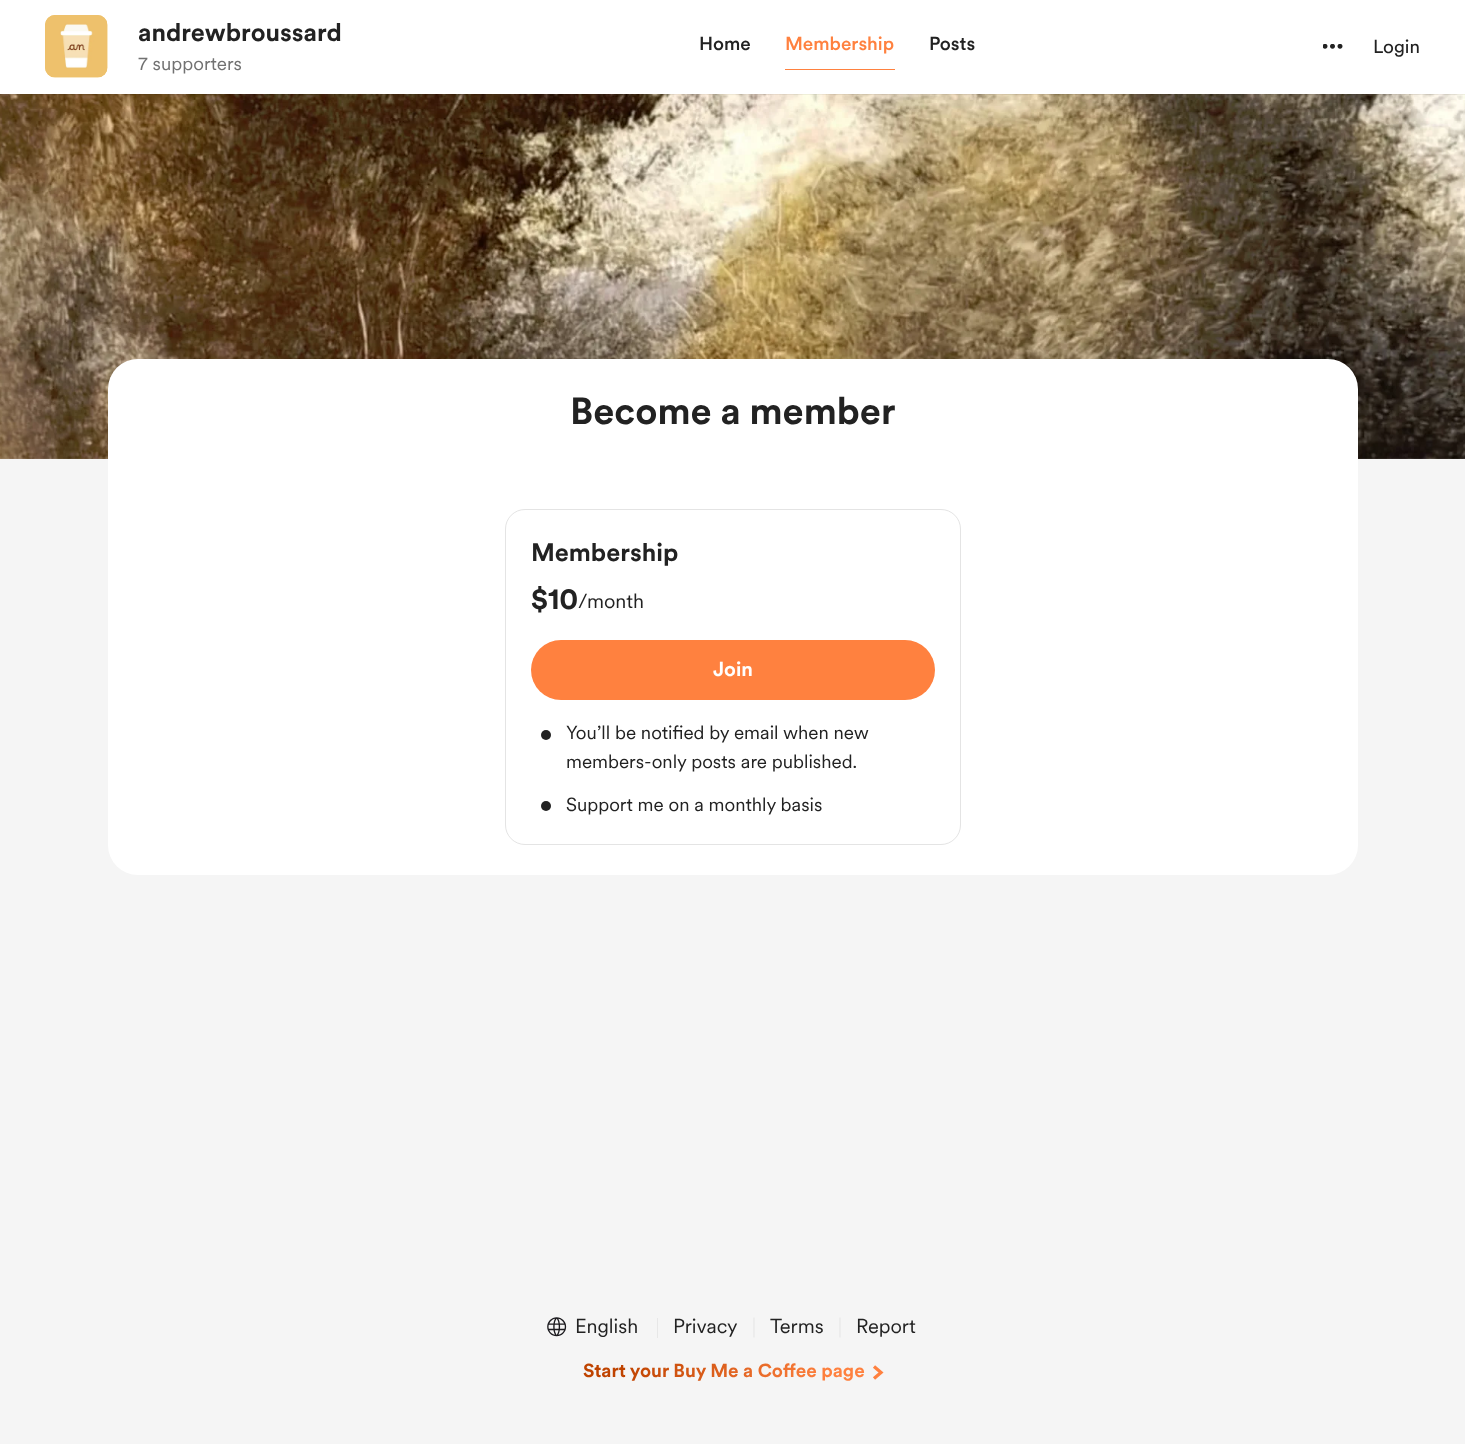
<svg xmlns="http://www.w3.org/2000/svg" xmlns:xlink="http://www.w3.org/1999/xlink" width="1465" height="1444" viewBox="0 0 1465 1444">
<style>
.cls-1{font:bold 25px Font;fill:#222222}
.cls-2{font:18.75px Font;fill:#717171}
.cls-3{font:500 18.75px Font;fill:#222222}
.cls-4{font:500 18.75px Font;fill:#ff813f}
.cls-5{font:18.75px 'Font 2';fill:#222222}
.cls-6{font:bold 37.5px Font;fill:#222222}
.cls-7{font:bold 30px Font;fill:#222222}
.cls-8{font:20px Font;fill:#222222}
.cls-9{font:bold 20px Font;fill:#ffffff}
.cls-10{font:18.75px Font;fill:#222222}
.cls-11{font:bold 18.75px Font;fill:url(#g1)}
</style>
<defs>
<linearGradient id="g1" gradientUnits="userSpaceOnUse" x1="601" y1="1315" x2="864" y2="1427"><stop offset="0.14" stop-color="#bf4300"/><stop offset="0.82" stop-color="#ff813f"/></linearGradient>
</defs>
<rect width="100%" height="100%" fill="#f5f5f5"/>
<image xlink:href="image3.png" x="0" y="458" width="1465" height="1"/>
<image xlink:href="image4.png" x="0" y="94" width="1465" height="365"/>
<rect fill="#000000" fill-opacity="0.06" filter="blur(0.5px)" x="0" y="1" width="1465" height="94"/>
<rect fill="#ffffff" x="0" y="0" width="1465" height="94"/>
<image xlink:href="image0.png" x="45" y="15" width="63" height="63"/>
<image xlink:href="image1.png" x="45" y="15" width="63" height="63"/>
<rect fill="#ff813f" x="785" y="69" width="110" height="1"/>
<image xlink:href="image2.png" x="1323" y="44" width="20" height="5"/>
<rect fill="#ffffff" x="108" y="359" width="1250" height="516" rx="30"/>
<rect fill="none" stroke="#e4e4e4" x="505.5" y="509.5" width="455" height="335" rx="19.5"/>
<rect fill="#ff813f" x="531" y="640" width="404" height="60" rx="30"/>
<circle fill="#222222" cx="546" cy="735" r="5"/>
<circle fill="#222222" cx="546" cy="806" r="5"/>
<image xlink:href="image5.png" x="547" y="1317" width="20" height="20"/>
<rect fill="#e7e7e7" x="657" y="1318" width="1" height="20"/>
<path fill="none" stroke="#e7e7e7" stroke-width="1.2" d="M754 1317.5V1337.5"/>
<path fill="none" stroke="#e7e7e7" stroke-width="1.2" d="M840 1317.5V1337.5"/>
<path fill="none" stroke="#ff813f" stroke-width="3.3" d="M874 1366.5L881 1372.5L874 1378.5"/>
<text class="cls-1" x="138" y="41">andrewbroussard</text>
<text class="cls-2" x="138" y="70">7 supporters</text>
<text class="cls-3" x="699" y="50">Home</text>
<text class="cls-4" x="785" y="50">Membership</text>
<text class="cls-3" x="929" y="50">Posts</text>
<text class="cls-5" x="1373" y="53">Login</text>
<text class="cls-6" x="570" y="424">Become a member</text>
<text class="cls-1" x="531" y="561">Membership</text>
<text class="cls-7" x="531" y="609">$10</text>
<text class="cls-8" x="578" y="608">/month</text>
<text class="cls-9" x="713" y="676">Join</text>
<text class="cls-10"><tspan x="566" y="739">You’ll be notified by email when new</tspan><tspan x="566" y="768">members-only posts are published.</tspan></text>
<text class="cls-10" x="566" y="811">Support me on a monthly basis</text>
<text class="cls-8" x="575" y="1333">English</text>
<text class="cls-8" x="673" y="1333">Privacy</text>
<text class="cls-8" x="770" y="1333">Terms</text>
<text class="cls-8" x="856" y="1333">Report</text>
<text class="cls-11" x="583" y="1377">Start your Buy Me a Coffee page</text>
</svg>
